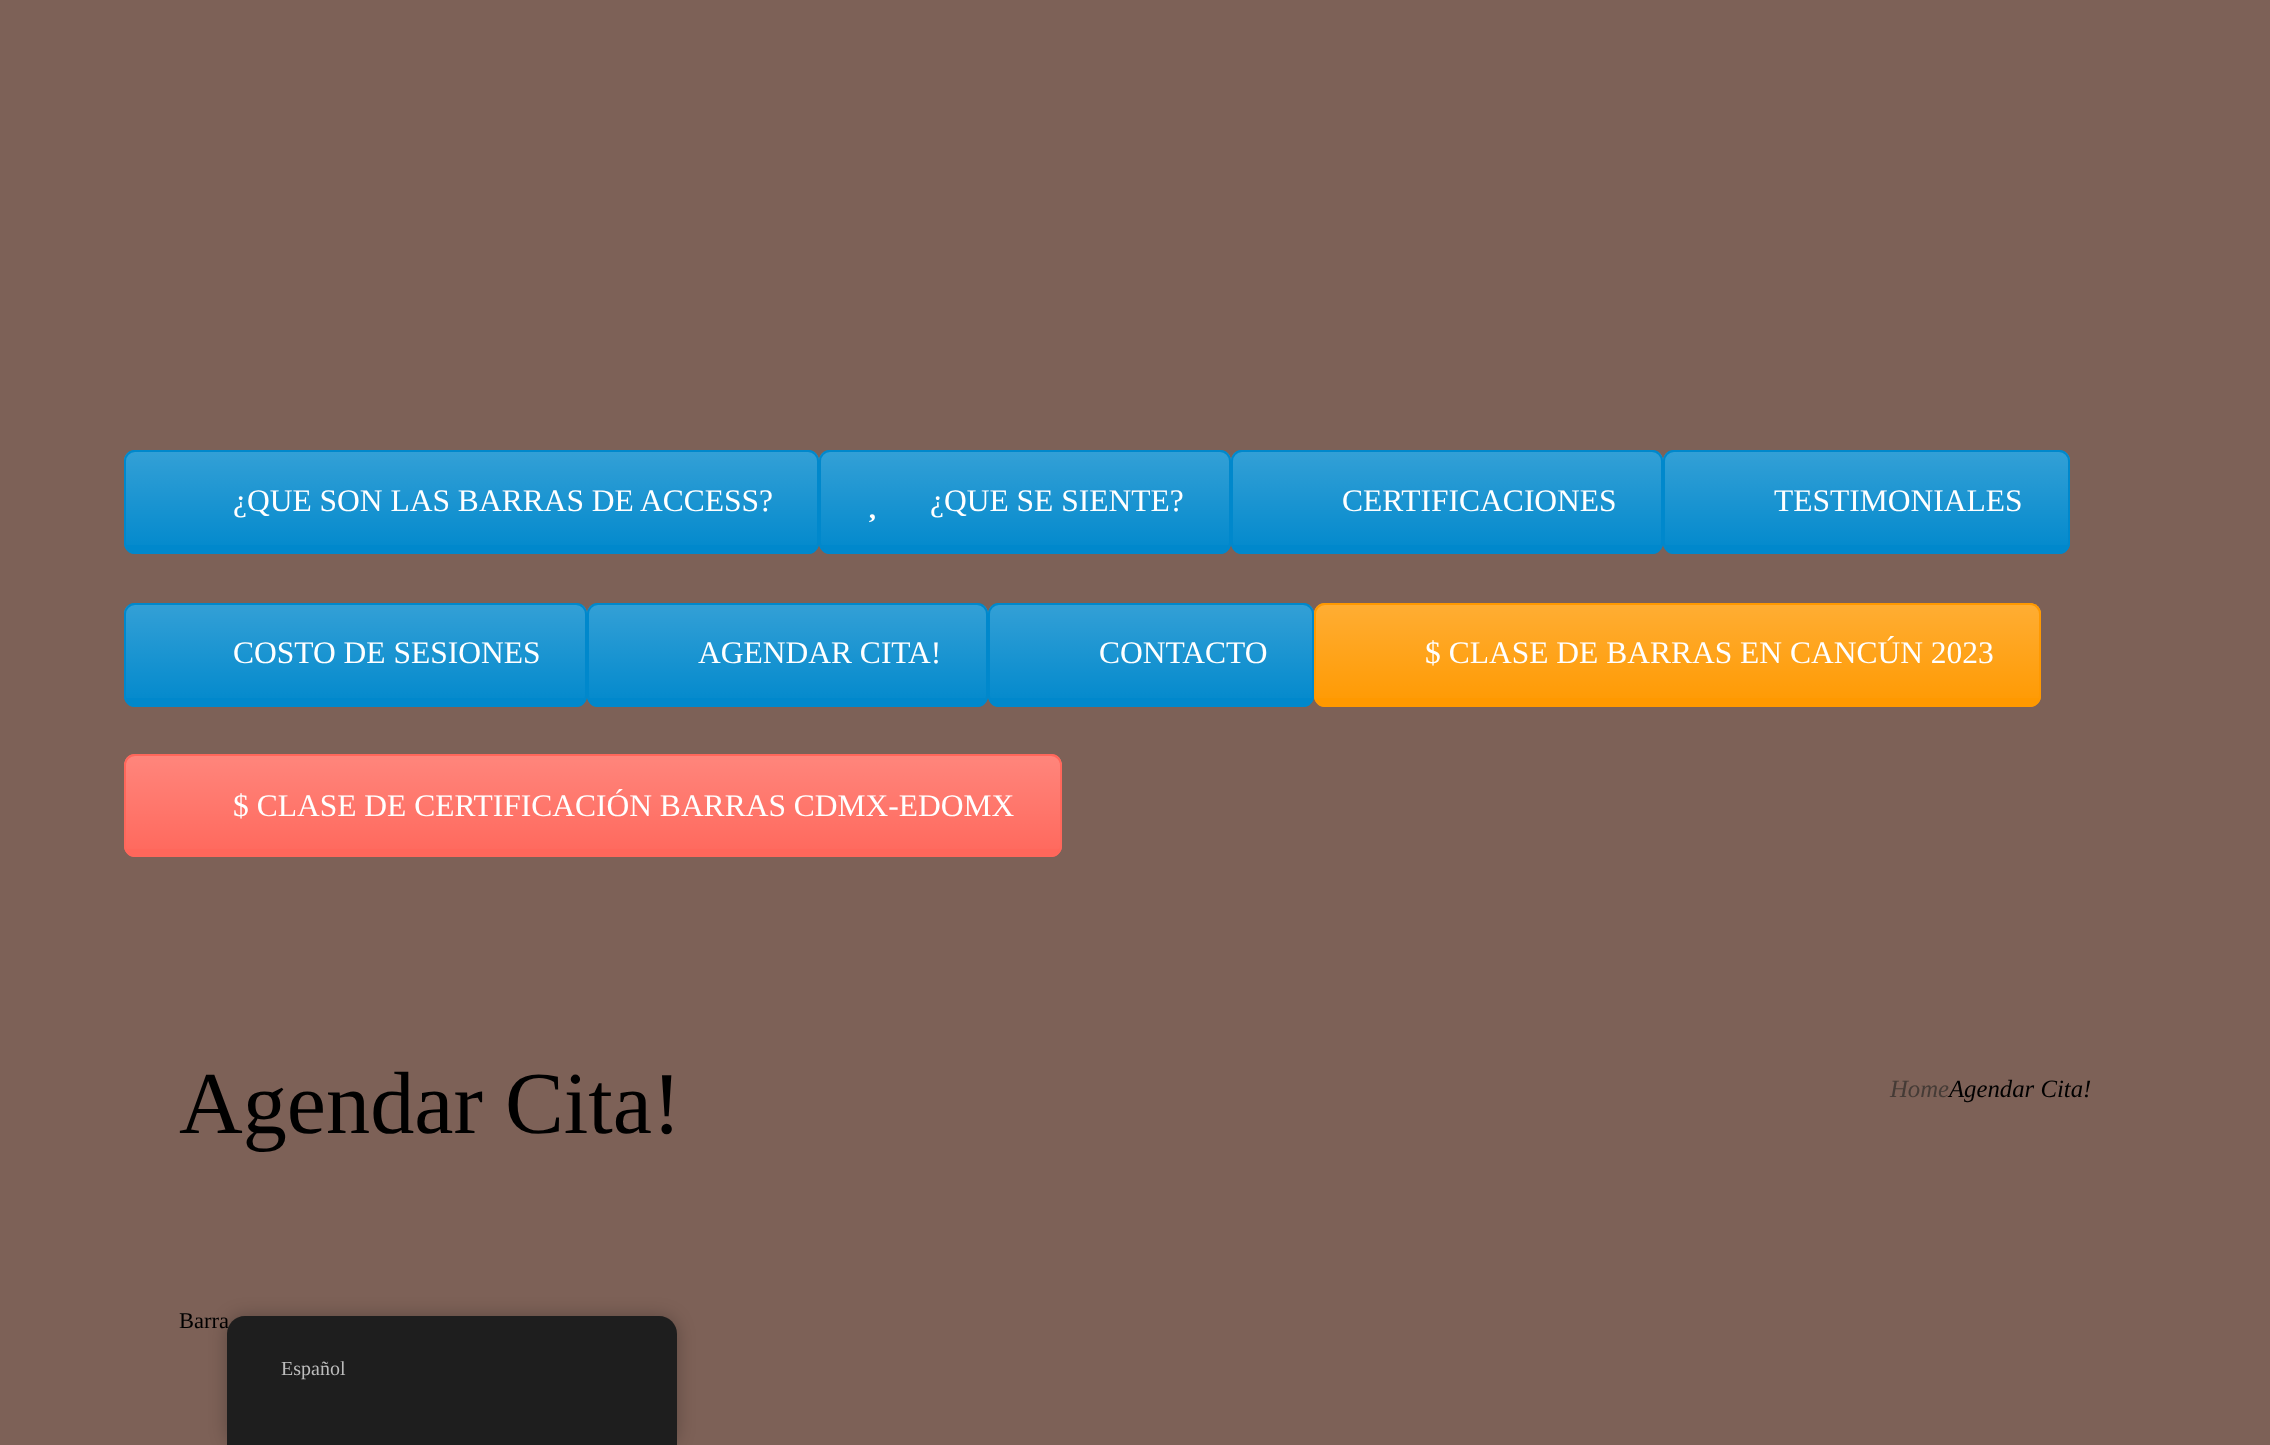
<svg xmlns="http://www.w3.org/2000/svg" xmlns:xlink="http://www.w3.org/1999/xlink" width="2270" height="1445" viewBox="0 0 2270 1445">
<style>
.cls-1{font:31.5px Liberation Serif;fill:#ffffff}
.cls-2{font:88.25px Liberation Serif;fill:#000000}
.cls-3{font:italic 24.75px Liberation Serif;fill:#453b36}
.cls-4{font:italic 24.75px Liberation Serif;fill:#000000}
.cls-5{font:22.5px Liberation Serif;fill:#000000}
.cls-6{font:20px Liberation Serif;fill:#bdbdbd}
</style>
<defs>
<clipPath id="clip1"><rect x="124" y="450" width="695" height="104" rx="11"/></clipPath>
<linearGradient id="g1" gradientUnits="userSpaceOnUse" x1="471" y1="452" x2="471" y2="551"><stop offset="0" stop-color="#ffffff" stop-opacity="0.2"/><stop offset="1" stop-color="#ffffff" stop-opacity="0.01"/></linearGradient>
<clipPath id="clip2"><rect x="819" y="450" width="412" height="104" rx="11"/></clipPath>
<linearGradient id="g2" gradientUnits="userSpaceOnUse" x1="1025" y1="452" x2="1025" y2="551"><stop offset="0" stop-color="#ffffff" stop-opacity="0.2"/><stop offset="1" stop-color="#ffffff" stop-opacity="0.01"/></linearGradient>
<clipPath id="clip3"><rect x="1231" y="450" width="432" height="104" rx="11"/></clipPath>
<linearGradient id="g3" gradientUnits="userSpaceOnUse" x1="1447" y1="452" x2="1447" y2="551"><stop offset="0" stop-color="#ffffff" stop-opacity="0.2"/><stop offset="1" stop-color="#ffffff" stop-opacity="0.01"/></linearGradient>
<clipPath id="clip4"><rect x="1663" y="450" width="407" height="104" rx="11"/></clipPath>
<linearGradient id="g4" gradientUnits="userSpaceOnUse" x1="1866" y1="452" x2="1866" y2="551"><stop offset="0" stop-color="#ffffff" stop-opacity="0.2"/><stop offset="1" stop-color="#ffffff" stop-opacity="0.01"/></linearGradient>
<clipPath id="clip5"><rect x="124" y="603" width="463" height="104" rx="11"/></clipPath>
<linearGradient id="g5" gradientUnits="userSpaceOnUse" x1="356" y1="605" x2="356" y2="704"><stop offset="0" stop-color="#ffffff" stop-opacity="0.2"/><stop offset="1" stop-color="#ffffff" stop-opacity="0.01"/></linearGradient>
<clipPath id="clip6"><rect x="587" y="603" width="401" height="104" rx="11"/></clipPath>
<linearGradient id="g6" gradientUnits="userSpaceOnUse" x1="788" y1="605" x2="788" y2="704"><stop offset="0" stop-color="#ffffff" stop-opacity="0.2"/><stop offset="1" stop-color="#ffffff" stop-opacity="0.01"/></linearGradient>
<clipPath id="clip7"><rect x="988" y="603" width="326" height="104" rx="11"/></clipPath>
<linearGradient id="g7" gradientUnits="userSpaceOnUse" x1="1151" y1="605" x2="1151" y2="704"><stop offset="0" stop-color="#ffffff" stop-opacity="0.2"/><stop offset="1" stop-color="#ffffff" stop-opacity="0.01"/></linearGradient>
<clipPath id="clip8"><rect x="1314" y="603" width="727" height="104" rx="11"/></clipPath>
<linearGradient id="g8" gradientUnits="userSpaceOnUse" x1="1677" y1="605" x2="1677" y2="704"><stop offset="0" stop-color="#ffffff" stop-opacity="0.2"/><stop offset="1" stop-color="#ffffff" stop-opacity="0.01"/></linearGradient>
<clipPath id="clip9"><rect x="124" y="754" width="938" height="103" rx="11"/></clipPath>
<linearGradient id="g9" gradientUnits="userSpaceOnUse" x1="593" y1="756" x2="593" y2="855"><stop offset="0" stop-color="#ffffff" stop-opacity="0.2"/><stop offset="1" stop-color="#ffffff" stop-opacity="0.01"/></linearGradient>
</defs>
<rect width="100%" height="100%" fill="#7d6157"/>
<rect fill="#0088cc" x="124" y="450" width="695" height="104" rx="11"/>
<g clip-path="url(#clip1)">
<rect fill="url(#g1)" x="124" y="452" width="695" height="93"/>
</g>
<rect fill="none" stroke="#0088cc" stroke-width="2" x="125" y="451" width="693" height="102" rx="10"/>
<rect fill="#0088cc" x="819" y="450" width="412" height="104" rx="11"/>
<g clip-path="url(#clip2)">
<rect fill="url(#g2)" x="819" y="452" width="412" height="93"/>
</g>
<rect fill="none" stroke="#0088cc" stroke-width="2" x="820" y="451" width="410" height="102" rx="10"/>
<image xlink:href="image0.png" x="869" y="514" width="6" height="9"/>
<rect fill="#0088cc" x="1231" y="450" width="432" height="104" rx="11"/>
<g clip-path="url(#clip3)">
<rect fill="url(#g3)" x="1231" y="452" width="432" height="93"/>
</g>
<rect fill="none" stroke="#0088cc" stroke-width="2" x="1232" y="451" width="430" height="102" rx="10"/>
<rect fill="#0088cc" x="1663" y="450" width="407" height="104" rx="11"/>
<g clip-path="url(#clip4)">
<rect fill="url(#g4)" x="1663" y="452" width="407" height="93"/>
</g>
<rect fill="none" stroke="#0088cc" stroke-width="2" x="1664" y="451" width="405" height="102" rx="10"/>
<rect fill="#0088cc" x="124" y="603" width="463" height="104" rx="11"/>
<g clip-path="url(#clip5)">
<rect fill="url(#g5)" x="124" y="605" width="463" height="93"/>
</g>
<rect fill="none" stroke="#0088cc" stroke-width="2" x="125" y="604" width="461" height="102" rx="10"/>
<rect fill="#0088cc" x="587" y="603" width="401" height="104" rx="11"/>
<g clip-path="url(#clip6)">
<rect fill="url(#g6)" x="587" y="605" width="401" height="93"/>
</g>
<rect fill="none" stroke="#0088cc" stroke-width="2" x="588" y="604" width="399" height="102" rx="10"/>
<rect fill="#0088cc" x="988" y="603" width="326" height="104" rx="11"/>
<g clip-path="url(#clip7)">
<rect fill="url(#g7)" x="988" y="605" width="326" height="93"/>
</g>
<rect fill="none" stroke="#0088cc" stroke-width="2" x="989" y="604" width="324" height="102" rx="10"/>
<rect fill="#ff9900" x="1314" y="603" width="727" height="104" rx="11"/>
<g clip-path="url(#clip8)">
<rect fill="url(#g8)" x="1314" y="605" width="727" height="93"/>
</g>
<rect fill="none" stroke="#ff9900" stroke-width="2" x="1315" y="604" width="725" height="102" rx="10"/>
<rect fill="#ff675b" x="124" y="754" width="938" height="103" rx="11"/>
<g clip-path="url(#clip9)">
<rect fill="url(#g9)" x="124" y="756" width="938" height="93"/>
</g>
<rect fill="none" stroke="#ff675b" stroke-width="2" x="125" y="755" width="936" height="101" rx="10"/>
<rect fill="#000000" fill-opacity="0.25" filter="blur(9px)" x="227" y="1316" width="450" height="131" rx="18"/>
<text class="cls-1" x="233" y="511">¿QUE SON LAS BARRAS DE ACCESS?</text>
<text class="cls-1" x="930" y="511">¿QUE SE SIENTE?</text>
<text class="cls-1" x="1342" y="511">CERTIFICACIONES</text>
<text class="cls-1" x="1774" y="511">TESTIMONIALES</text>
<text class="cls-1" x="233" y="663">COSTO DE SESIONES</text>
<text class="cls-1" x="698" y="663">AGENDAR CITA!</text>
<text class="cls-1" x="1099" y="663">CONTACTO</text>
<text class="cls-1" x="1425" y="663">$ CLASE DE BARRAS EN CANCÚN 2023</text>
<text class="cls-1" x="233" y="816">$ CLASE DE CERTIFICACIÓN BARRAS CDMX-EDOMX</text>
<text class="cls-2" x="179" y="1133">Agendar Cita!</text>
<text class="cls-3" x="1890" y="1097">Home</text>
<text class="cls-4" x="1949" y="1097">Agendar Cita!</text>
<text class="cls-5" x="179" y="1328">Barra</text>
<path fill="#1e1e1e" d="M245 1316H659C669 1316 677 1324 677 1334V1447H227V1334C227 1324 235 1316 245 1316Z"/>
<text class="cls-6" x="281" y="1375">Español</text>
</svg>
